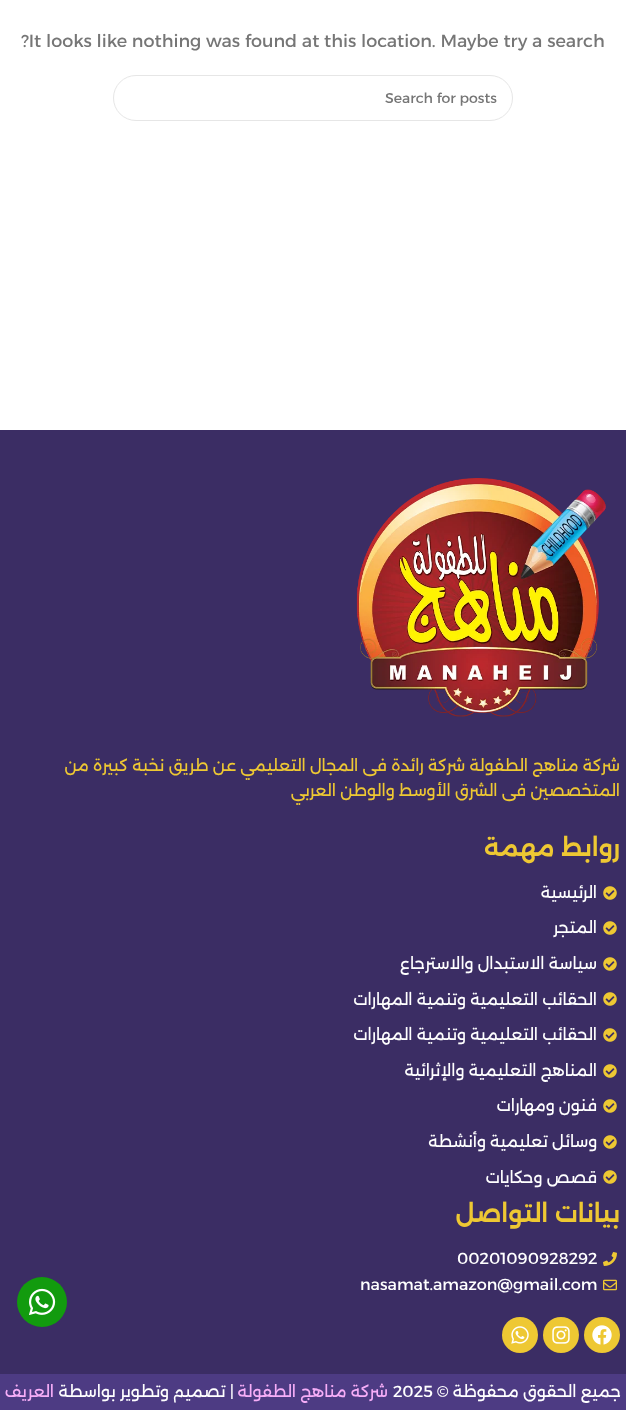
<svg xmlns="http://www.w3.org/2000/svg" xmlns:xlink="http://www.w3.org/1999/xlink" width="626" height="1410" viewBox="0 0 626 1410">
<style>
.cls-1{font:17.6px Alexandria;fill:#767676}
.cls-2{font:14px Alexandria;fill:#767676}
.cls-3{font:16px Alexandria;direction:rtl;fill:#eec833}
.cls-4{font:600 24px Alexandria;direction:rtl;fill:#eec833}
.cls-5{font:16px Alexandria;direction:rtl;fill:#ffffff}
.cls-6{font:16px Alexandria;fill:#ffffff}
.cls-7{font:16px Alexandria;direction:rtl;fill:#f7aef8}
</style>
<rect width="100%" height="100%" fill="#ffffff"/>
<rect fill="none" stroke="#e6e6e6" x="113.5" y="75.5" width="399" height="45" rx="22.5"/>
<rect fill="#3b2d64" x="0" y="430" width="626" height="944"/>
<image xlink:href="image0.png" x="356" y="478" width="250" height="239"/>
<image xlink:href="image1.png" x="603" y="886" width="14" height="14"/>
<image xlink:href="image1.png" x="603" y="921" width="14" height="14"/>
<image xlink:href="image1.png" x="603" y="957" width="14" height="14"/>
<image xlink:href="image1.png" x="603" y="992" width="14" height="14"/>
<image xlink:href="image1.png" x="603" y="1028" width="14" height="14"/>
<image xlink:href="image1.png" x="603" y="1064" width="14" height="14"/>
<image xlink:href="image1.png" x="603" y="1099" width="14" height="14"/>
<image xlink:href="image1.png" x="603" y="1135" width="14" height="14"/>
<image xlink:href="image1.png" x="603" y="1170" width="14" height="14"/>
<image xlink:href="image2.png" x="603" y="1252" width="14" height="14"/>
<image xlink:href="image3.png" x="603" y="1279" width="14" height="12"/>
<circle fill="#eec833" cx="602" cy="1335" r="18"/>
<image xlink:href="image4.png" x="592" y="1325" width="20" height="20"/>
<circle fill="#eec833" cx="561" cy="1335" r="18"/>
<image xlink:href="image5.png" x="552" y="1326" width="18" height="18"/>
<circle fill="#eec833" cx="520" cy="1335" r="18"/>
<image xlink:href="image6.png" x="511" y="1326" width="18" height="18"/>
<rect fill="#4d3b83" x="0" y="1374" width="626" height="36"/>
<circle fill="#129b0e" cx="42" cy="1302" r="25"/>
<image xlink:href="image7.png" x="29" y="1288" width="27" height="27"/>
<text class="cls-1" x="21" y="47">?It looks like nothing was found at this location. Maybe try a search</text>
<text class="cls-2" x="385" y="103">Search for posts</text>
<text class="cls-3"><tspan x="620" y="771">شركة مناهج الطفولة شركة رائدة فى المجال التعليمي عن طريق نخبة كبيرة من</tspan><tspan x="620" y="796">المتخصصين فى الشرق الأوسط والوطن العربي</tspan></text>
<text class="cls-4" x="620" y="856">روابط مهمة</text>
<text class="cls-5" x="597" y="898">الرئيسية</text>
<text class="cls-5" x="597" y="933">المتجر</text>
<text class="cls-5" x="597" y="969">سياسة الاستبدال والاسترجاع</text>
<text class="cls-5" x="597" y="1005">الحقائب التعليمية وتنمية المهارات</text>
<text class="cls-5" x="597" y="1040">الحقائب التعليمية وتنمية المهارات</text>
<text class="cls-5" x="597" y="1076">المناهج التعليمية والإثرائية</text>
<text class="cls-5" x="597" y="1111">فنون ومهارات</text>
<text class="cls-5" x="597" y="1147">وسائل تعليمية وأنشطة</text>
<text class="cls-5" x="597" y="1183">قصص وحكايات</text>
<text class="cls-4" x="620" y="1222">بيانات التواصل</text>
<text class="cls-6" x="457" y="1264">00201090928292</text>
<text class="cls-6" x="360" y="1290">nasamat.amazon@gmail.com</text>
<text class="cls-5" x="621" y="1397">جميع الحقوق محفوظة ©</text>
<text class="cls-6" x="393" y="1397">2025</text>
<text class="cls-7" x="388" y="1397">شركة مناهج الطفولة</text>
<text class="cls-5" x="234" y="1397">| تصميم وتطوير بواسطة</text>
<text class="cls-7" x="54" y="1397">العريف</text>
</svg>
